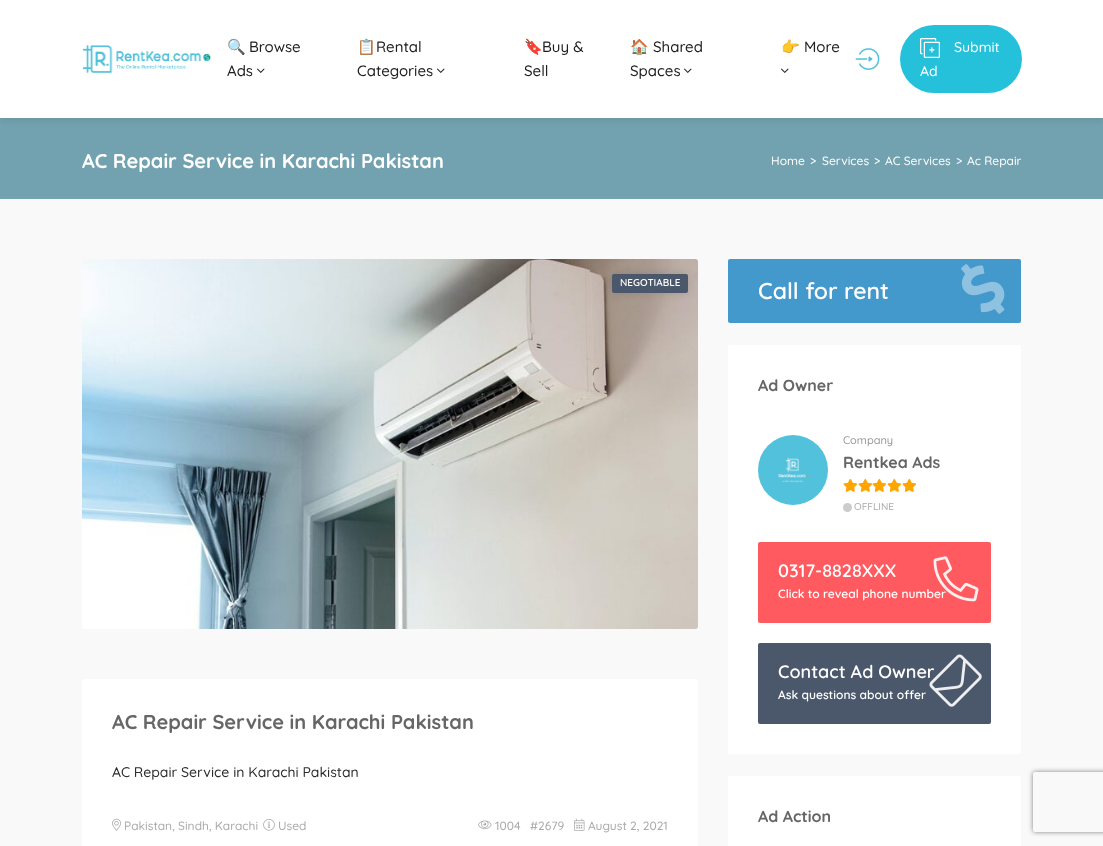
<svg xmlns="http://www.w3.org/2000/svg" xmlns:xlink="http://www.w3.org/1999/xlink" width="1103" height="846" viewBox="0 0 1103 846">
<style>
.cls-1{font:15px Noto Color Emoji;fill:#202020}
.cls-2{font:500 15px Quicksand;fill:#202020}
.cls-3{font:500 14px Quicksand;fill:#ffffff}
.cls-4{font:bold 20px Quicksand;fill:#ffffff}
.cls-5{font:500 12px Quicksand;fill:#ffffff}
.cls-6{font:600 10px Quicksand;fill:#ffffff}
.cls-7{font:bold 20px Quicksand;fill:#666666}
.cls-8{font:500 14px Quicksand;fill:#2d2d2d}
.cls-9{font:500 12px Quicksand;fill:#aaaaaa}
.cls-10{font:600 23px Quicksand;fill:#ffffff}
.cls-11{font:bold 16px Quicksand;fill:#666666}
.cls-12{font:500 11px Quicksand;fill:#969696}
.cls-13{font:500 10px Quicksand;fill:#aaaaaa}
.cls-14{font:600 18px Quicksand;fill:#ffffff}
.cls-15{font:600 12px Quicksand;fill:#ffffff}
</style>
<defs>
<clipPath id="clip1"><path d="M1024 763H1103V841H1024ZM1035 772H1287C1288 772 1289 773 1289 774V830C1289 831 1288 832 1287 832H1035C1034 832 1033 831 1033 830V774C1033 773 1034 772 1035 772Z" clip-rule="evenodd"/></clipPath>
</defs>
<rect width="100%" height="100%" fill="#f9f9f9"/>
<rect fill="#72a1af" x="0" y="118" width="1103" height="81"/>
<rect fill="#171717" fill-opacity="0.06" filter="blur(2px)" x="0" y="4" width="1103" height="118"/>
<rect fill="#ffffff" x="0" y="0" width="1103" height="118"/>
<image xlink:href="image0.png" x="82" y="45" width="129" height="28"/>
<image xlink:href="image1.png" x="257" y="68" width="8" height="5"/>
<image xlink:href="image1.png" x="437" y="68" width="8" height="5"/>
<image xlink:href="image1.png" x="684" y="68" width="8" height="5"/>
<image xlink:href="image1.png" x="781" y="68" width="8" height="5"/>
<image xlink:href="image2.png" x="855" y="48" width="25" height="22"/>
<rect fill="#25c1db" x="900" y="25" width="122" height="68" rx="34"/>
<image xlink:href="image3.png" x="920" y="38" width="20" height="20"/>
<image xlink:href="image4.png" x="82" y="259" width="616" height="370"/>
<rect fill="#000000" fill-opacity="0.12" filter="blur(5px)" x="612" y="274" width="76" height="19" rx="2"/>
<rect fill="#4b586b" x="612" y="274" width="76" height="19" rx="2"/>
<rect fill="#ffffff" x="82" y="679" width="616" height="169" rx="2"/>
<image xlink:href="image5.png" x="112" y="818" width="9" height="13"/>
<image xlink:href="image6.png" x="263" y="819" width="12" height="12"/>
<image xlink:href="image7.png" x="478" y="820" width="14" height="10"/>
<image xlink:href="image8.png" x="574" y="818" width="11" height="13"/>
<rect fill="#4499cc" x="728" y="259" width="293" height="64" rx="2"/>
<image xlink:href="image9.png" x="961" y="264" width="44" height="50"/>
<rect fill="#ffffff" x="728" y="345" width="293" height="409" rx="2"/>
<image xlink:href="image10.png" x="758" y="435" width="70" height="70"/>
<image xlink:href="image11.png" x="843" y="479" width="15" height="13"/>
<image xlink:href="image11.png" x="858" y="479" width="15" height="13"/>
<image xlink:href="image12.png" x="872" y="479" width="15" height="13"/>
<image xlink:href="image11.png" x="887" y="479" width="15" height="13"/>
<image xlink:href="image11.png" x="902" y="479" width="15" height="13"/>
<circle fill="#cccccc" cx="847.5" cy="507.5" r="4.5"/>
<rect fill="#ff5a5f" x="758" y="542" width="233" height="81" rx="2"/>
<rect fill="#4b586b" x="758" y="643" width="233" height="81" rx="2"/>
<rect fill="#ffffff" x="728" y="776" width="293" height="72" rx="2"/>
<g clip-path="url(#clip1)">
<rect fill="#808080" filter="blur(2.5px)" x="1033" y="772" width="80" height="60" rx="2"/>
</g>
<text class="cls-1" x="227" y="52">🔍</text>
<text class="cls-2" x="249" y="52">Browse</text>
<text class="cls-2" x="227" y="76">Ads</text>
<text class="cls-1" x="357" y="52">📋</text>
<text class="cls-2" x="376" y="52">Rental</text>
<text class="cls-2" x="357" y="76">Categories</text>
<text class="cls-1" x="524" y="52">🔖</text>
<text class="cls-2" x="542" y="52">Buy &amp;</text>
<text class="cls-2" x="524" y="76">Sell</text>
<text class="cls-1" x="630" y="52">🏠</text>
<text class="cls-2" x="653" y="52">Shared</text>
<text class="cls-2" x="630" y="76">Spaces</text>
<text class="cls-1" x="781" y="52">👉</text>
<text class="cls-2" x="804" y="52">More</text>
<text class="cls-3" x="954" y="52">Submit</text>
<text class="cls-3" x="920" y="76">Ad</text>
<text class="cls-4" x="82" y="168">AC Repair Service in Karachi Pakistan</text>
<text class="cls-5" x="771" y="165">Home</text>
<text class="cls-5" x="810" y="165">&gt;</text>
<text class="cls-5" x="822" y="165">Services</text>
<text class="cls-5" x="874" y="165">&gt;</text>
<text class="cls-5" x="885" y="165">AC Services</text>
<text class="cls-5" x="956" y="165">&gt;</text>
<text class="cls-5" x="967" y="165">Ac Repair</text>
<text class="cls-6" x="620" y="286">NEGOTIABLE</text>
<text class="cls-7" x="112" y="729">AC Repair Service in Karachi Pakistan</text>
<text class="cls-8" x="112" y="777">AC Repair Service in Karachi Pakistan</text>
<text class="cls-9" x="124" y="830">Pakistan, Sindh, Karachi</text>
<text class="cls-9" x="278" y="830">Used</text>
<text class="cls-9" x="495" y="830">1004</text>
<text class="cls-9" x="530" y="830">#2679</text>
<text class="cls-9" x="588" y="830">August 2, 2021</text>
<text class="cls-10" x="758" y="299">Call for rent</text>
<text class="cls-11" x="758" y="391">Ad Owner</text>
<text class="cls-12" x="843" y="444">Company</text>
<text class="cls-11" x="843" y="468">Rentkea Ads</text>
<text class="cls-13" x="854" y="510">OFFLINE</text>
<text class="cls-14" x="778" y="577">0317-8828XXX</text>
<text class="cls-15" x="778" y="598">Click to reveal phone number</text>
<image xlink:href="image13.png" x="933" y="556" width="46" height="46"/>
<text class="cls-14" x="778" y="678">Contact Ad Owner</text>
<text class="cls-15" x="778" y="699">Ask questions about offer</text>
<image xlink:href="image14.png" x="929" y="654" width="53" height="53"/>
<text class="cls-11" x="758" y="822">Ad Action</text>
</svg>
